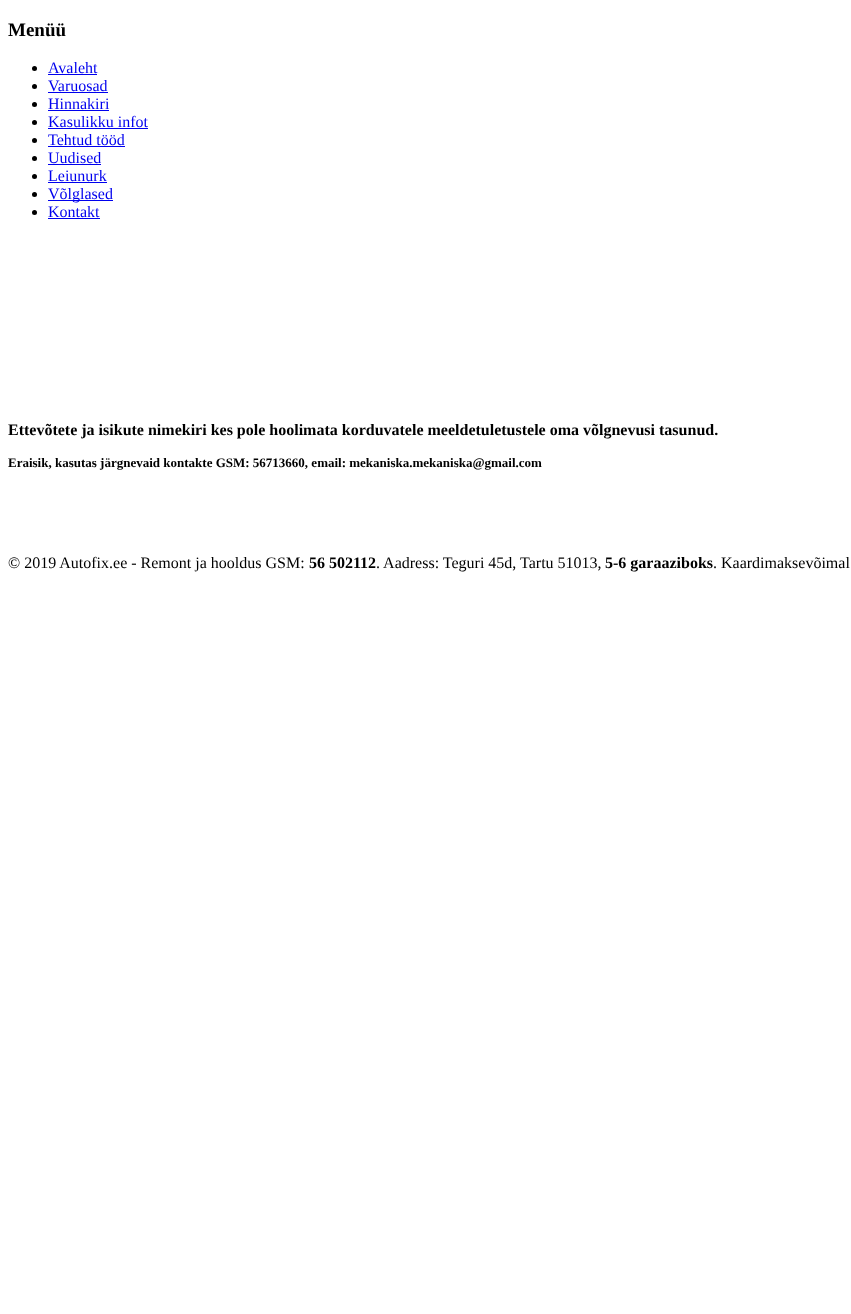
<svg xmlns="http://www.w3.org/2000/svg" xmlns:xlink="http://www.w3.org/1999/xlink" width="851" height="1314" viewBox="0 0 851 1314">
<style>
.cls-1{font:bold 19px Liberation Serif;fill:#000000}
.cls-2{font:16px Liberation Serif;fill:#0000ee}
.cls-3{font:bold 16px Liberation Serif;fill:#000000}
.cls-4{font:bold 13px Liberation Serif;fill:#000000}
.cls-5{font:16px Liberation Serif;fill:#000000}
</style>
<rect width="100%" height="100%" fill="#ffffff"/>
<circle fill="#000000" cx="34.5" cy="68.5" r="2.5"/>
<rect fill="#0000ee" x="48" y="74" width="49" height="1"/>
<circle fill="#000000" cx="34.5" cy="86.5" r="2.5"/>
<rect fill="#0000ee" x="48" y="92" width="60" height="1"/>
<circle fill="#000000" cx="34.5" cy="104.5" r="2.5"/>
<rect fill="#0000ee" x="48" y="110" width="61" height="1"/>
<circle fill="#000000" cx="34.5" cy="122.5" r="2.5"/>
<rect fill="#0000ee" x="48" y="128" width="100" height="1"/>
<circle fill="#000000" cx="34.5" cy="140.5" r="2.5"/>
<rect fill="#0000ee" x="48" y="146" width="77" height="1"/>
<circle fill="#000000" cx="34.5" cy="158.5" r="2.5"/>
<rect fill="#0000ee" x="48" y="164" width="53" height="1"/>
<circle fill="#000000" cx="34.5" cy="176.5" r="2.5"/>
<rect fill="#0000ee" x="48" y="182" width="59" height="1"/>
<circle fill="#000000" cx="34.5" cy="194.5" r="2.5"/>
<rect fill="#0000ee" x="48" y="200" width="65" height="1"/>
<circle fill="#000000" cx="34.5" cy="212.5" r="2.5"/>
<rect fill="#0000ee" x="48" y="218" width="52" height="1"/>
<text class="cls-1" x="8" y="36">Menüü</text>
<text class="cls-2"><tspan x="48" y="73">Avaleht</tspan><tspan x="48" y="91">Varuosad</tspan><tspan x="48" y="109">Hinnakiri</tspan><tspan x="48" y="127">Kasulikku infot</tspan><tspan x="48" y="145">Tehtud tööd</tspan><tspan x="48" y="163">Uudised</tspan><tspan x="48" y="181">Leiunurk</tspan><tspan x="48" y="199">Võlglased</tspan><tspan x="48" y="217">Kontakt</tspan></text>
<text class="cls-3" x="8" y="435">Ettevõtete ja isikute nimekiri kes pole hoolimata korduvatele meeldetuletustele oma võlgnevusi tasunud.</text>
<text class="cls-4" x="8" y="467">Eraisik, kasutas järgnevaid kontakte GSM: 56713660, email: mekaniska.mekaniska@gmail.com</text>
<text class="cls-5" x="8" y="568">© 2019 Autofix.ee - Remont ja hooldus GSM:</text>
<text class="cls-3" x="309" y="568">56 502112</text>
<text class="cls-5" x="376" y="568">. Aadress: Teguri 45d, Tartu 51013,</text>
<text class="cls-3" x="605" y="568">5-6 garaaziboks</text>
<text class="cls-5" x="713" y="568">. Kaardimaksevõimal</text>
</svg>
